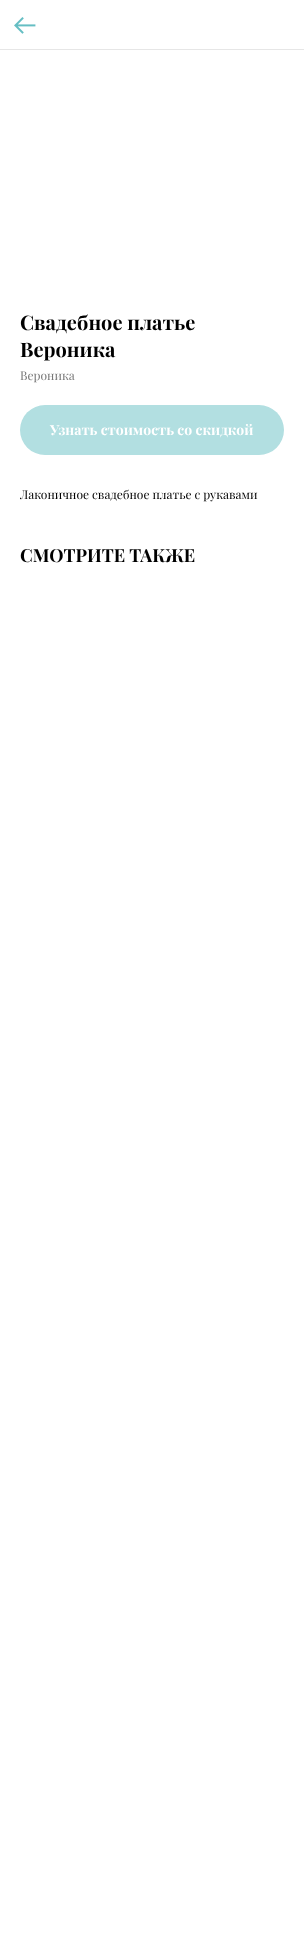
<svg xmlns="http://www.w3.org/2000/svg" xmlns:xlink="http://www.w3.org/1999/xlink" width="304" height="1949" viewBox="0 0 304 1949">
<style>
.cls-1{font:bold 20px Playfair Display;fill:#000000}
.cls-2{font:12px Playfair Display;fill:#777777}
.cls-3{font:bold 14px Playfair Display;fill:#ffffff}
.cls-4{font:12px Playfair Display;fill:#000000}
.cls-5{font:bold 18px Playfair Display;fill:#000000}
</style>
<rect width="100%" height="100%" fill="#ffffff"/>
<rect fill="#e6e6e6" x="0" y="49" width="304" height="1"/>
<image xlink:href="image0.png" x="14" y="17" width="22" height="17"/>
<rect fill="#b2dfe1" x="20" y="405" width="264" height="50" rx="25"/>
<text class="cls-1"><tspan x="20" y="330">Свадебное платье</tspan><tspan x="20" y="357">Вероника</tspan></text>
<text class="cls-2" x="20" y="380">Вероника</text>
<text class="cls-3" x="50" y="435">Узнать стоимость со скидкой</text>
<text class="cls-4" x="20" y="499">Лаконичное свадебное платье с рукавами</text>
<text class="cls-5" x="20" y="562">СМОТРИТЕ ТАКЖЕ</text>
</svg>
